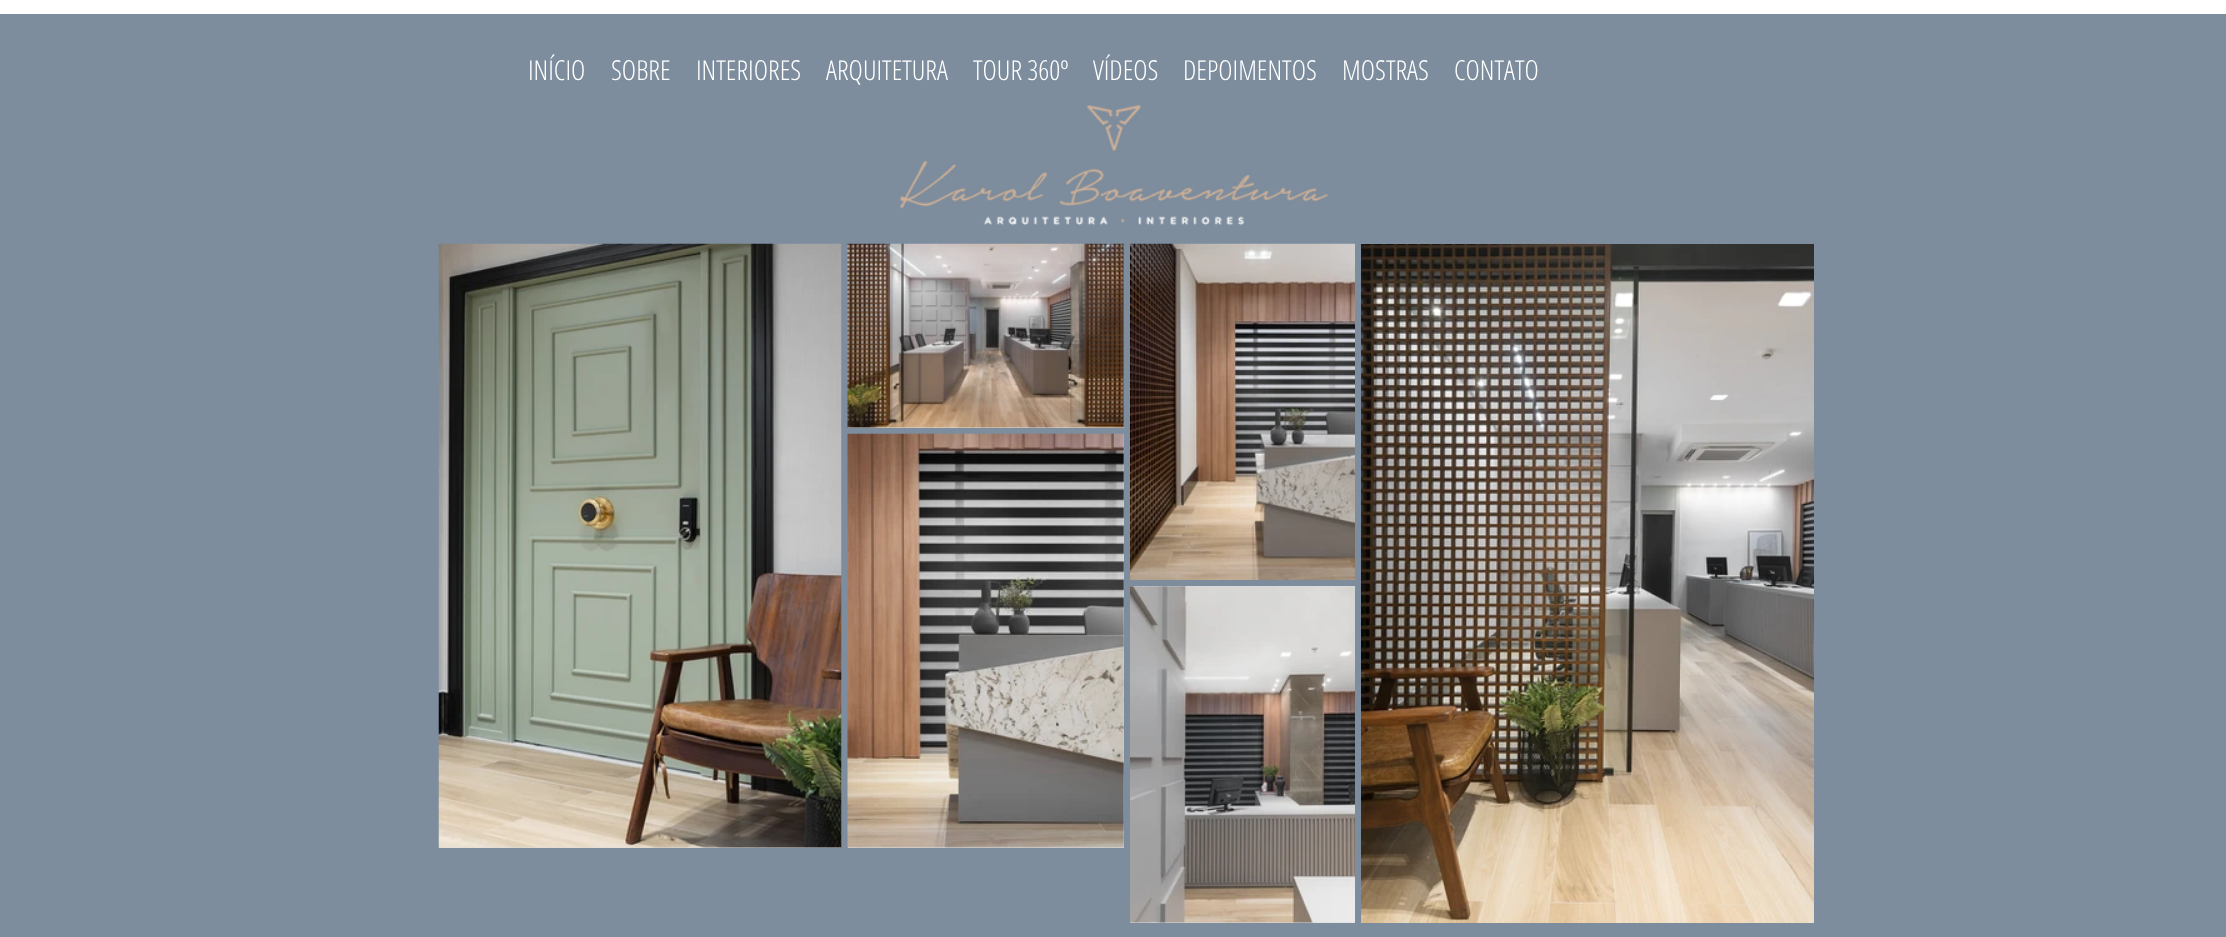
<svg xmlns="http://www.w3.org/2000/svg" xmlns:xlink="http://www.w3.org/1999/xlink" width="2226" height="937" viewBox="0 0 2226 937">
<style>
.cls-1{font:300 27.5px Open Sans Condensed;fill:#ffffff}
</style>
<rect width="100%" height="100%" fill="#ffffff"/>
<rect fill="#7d8d9d" x="0" y="14" width="2226" height="923"/>
<image xlink:href="image0.png" x="900" y="105" width="428" height="121"/>
<rect fill="#dddcdc" x="439" y="847" width="402" height="1"/>
<image xlink:href="image1.png" x="438" y="243" width="404" height="605"/>
<rect fill="#dddcdc" x="848" y="244" width="276" height="184"/>
<image xlink:href="image2.png" x="847" y="243" width="277" height="185"/>
<image xlink:href="image3.png" x="1130" y="243" width="225" height="337"/>
<image xlink:href="image4.png" x="1361" y="244" width="453" height="679"/>
<rect fill="#dddcdc" x="848" y="434" width="276" height="414"/>
<image xlink:href="image5.png" x="847" y="433" width="277" height="415"/>
<rect fill="#dddcdc" x="1130" y="586" width="225" height="337"/>
<image xlink:href="image6.png" x="1130" y="586" width="225" height="337"/>
<text class="cls-1" x="528" y="80">INÍCIO</text>
<text class="cls-1" x="611" y="80">SOBRE</text>
<text class="cls-1" x="696" y="80">INTERIORES</text>
<text class="cls-1" x="826" y="80">ARQUITETURA</text>
<text class="cls-1" x="973" y="80">TOUR 360º</text>
<text class="cls-1" x="1093" y="80">VÍDEOS</text>
<text class="cls-1" x="1183" y="80">DEPOIMENTOS</text>
<text class="cls-1" x="1342" y="80">MOSTRAS</text>
<text class="cls-1" x="1454" y="80">CONTATO</text>
</svg>
